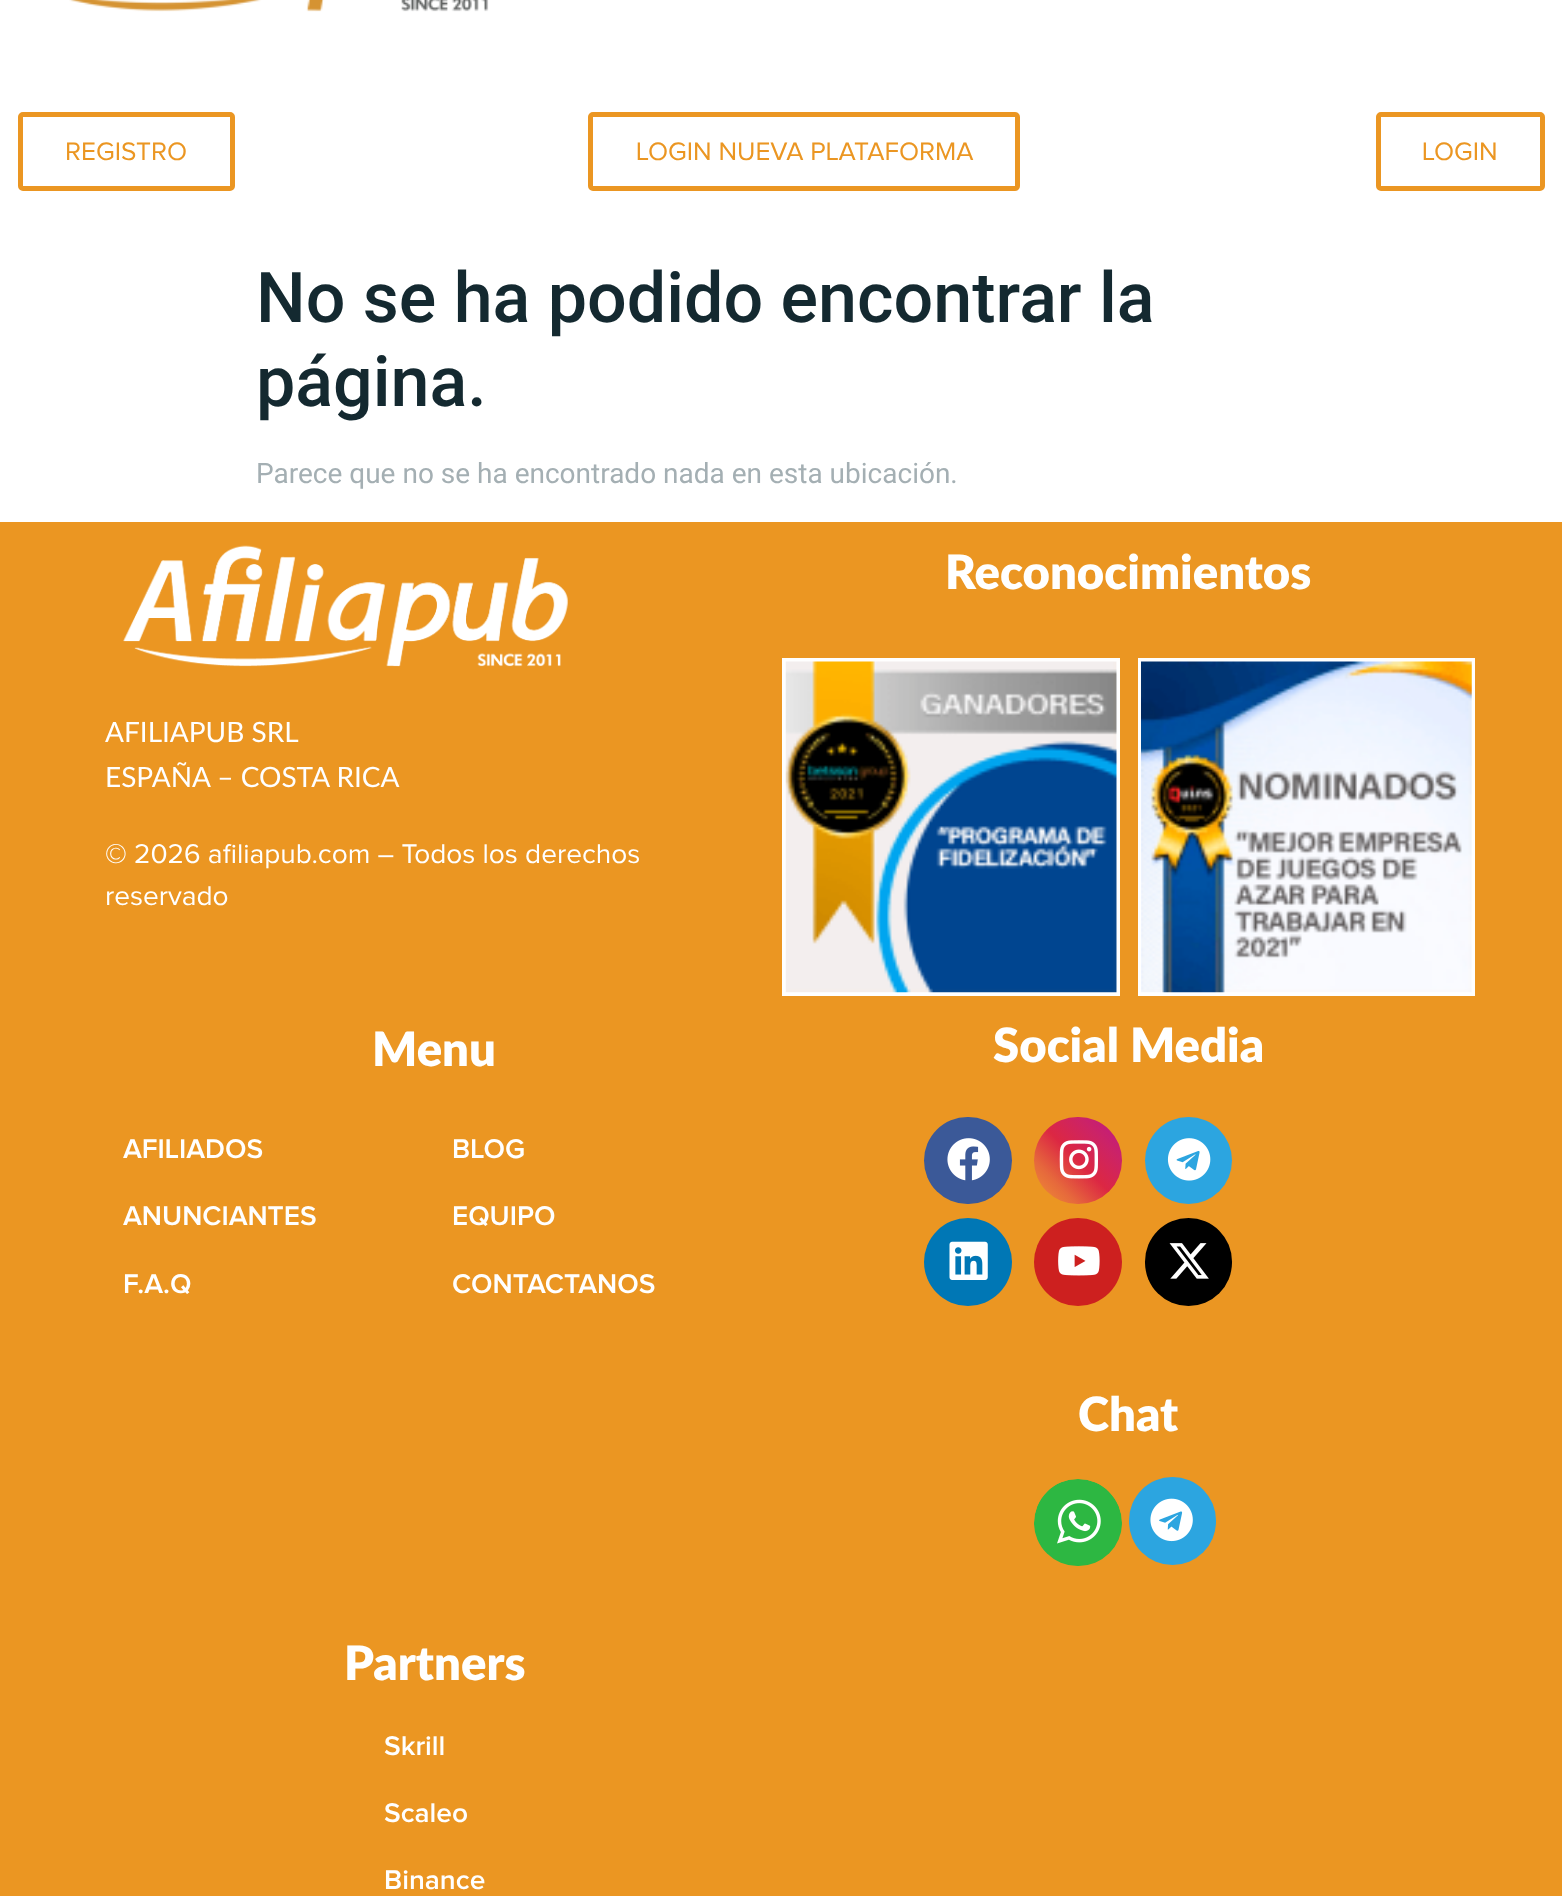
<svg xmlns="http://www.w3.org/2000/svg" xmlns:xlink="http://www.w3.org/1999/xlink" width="1562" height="1896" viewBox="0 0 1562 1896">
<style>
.cls-1{font:26.25px Proxima Nova;fill:#eb9622}
.cls-2{font:500 70px Roboto;fill:#142930}
.cls-3{font:28px Roboto;fill:#a4afb3}
.cls-4{font:800 47.25px Lato;fill:#ffffff}
.cls-5{font:28px Lato;fill:#ffffff}
.cls-6{font:28px Proxima Nova;fill:#ffffff}
.cls-7{font:600 28px Proxima Nova;fill:#ffffff}
</style>
<defs>
<linearGradient id="g1" gradientUnits="userSpaceOnUse" x1="1034" y1="1204" x2="1122" y2="1117"><stop offset="0" stop-color="#f09433"/><stop offset="0.25" stop-color="#e6683c"/><stop offset="0.5" stop-color="#dc2743"/><stop offset="0.75" stop-color="#cc2366"/><stop offset="1" stop-color="#bc1888"/></linearGradient>
<clipPath id="clip1"><rect x="1034" y="1479" width="88" height="87" rx="43.5"/></clipPath>
</defs>
<rect width="100%" height="100%" fill="#ffffff"/>
<image xlink:href="image0.png" x="69" y="0" width="420" height="12"/>
<rect fill="none" stroke="#eb9622" stroke-width="5" x="20.5" y="114.5" width="212" height="74" rx="2.5"/>
<rect fill="none" stroke="#eb9622" stroke-width="5" x="590.5" y="114.5" width="427" height="74" rx="2.5"/>
<rect fill="none" stroke="#eb9622" stroke-width="5" x="1378.5" y="114.5" width="164" height="74" rx="2.5"/>
<rect fill="#eb9622" x="0" y="522" width="1562" height="1374"/>
<rect fill="none" stroke="#ffffff" stroke-width="4" x="784" y="660" width="334" height="334"/>
<image xlink:href="image1.png" x="785" y="661" width="332" height="332"/>
<rect fill="none" stroke="#ffffff" stroke-width="4" x="1140" y="660" width="333" height="334"/>
<image xlink:href="image2.png" x="1141" y="661" width="331" height="332"/>
<image xlink:href="image3.png" x="123" y="545" width="445" height="122"/>
<rect fill="#3b5998" x="924" y="1117" width="88" height="87" rx="43.5"/>
<image xlink:href="image4.png" x="947" y="1138" width="43" height="43"/>
<rect fill="url(#g1)" x="1034" y="1117" width="88" height="87" rx="43.5"/>
<image xlink:href="image5.png" x="1059" y="1140" width="40" height="39"/>
<circle fill="#2ca5e0" cx="1188.5" cy="1160.5" r="43.5"/>
<image xlink:href="image6.png" x="1167" y="1138" width="44" height="43"/>
<circle fill="#0077b5" cx="968" cy="1262" r="44"/>
<image xlink:href="image7.png" x="949" y="1241" width="39" height="39"/>
<circle fill="#cd201f" cx="1078" cy="1262" r="44"/>
<image xlink:href="image8.png" x="1058" y="1246" width="42" height="30"/>
<rect fill="#000000" x="1145" y="1218" width="87" height="88" rx="43.5"/>
<image xlink:href="image9.png" x="1169" y="1243" width="40" height="36"/>
<g clip-path="url(#clip1)">
<rect fill="#2db742" x="1034" y="1479" width="88" height="112" rx="44"/>
</g>
<image xlink:href="image10.png" x="1057" y="1499" width="44" height="45"/>
<rect fill="#2ca5e0" x="1129" y="1477" width="87" height="88" rx="43.5"/>
<image xlink:href="image11.png" x="1150" y="1498" width="43" height="44"/>
<text class="cls-1" x="65" y="160">REGISTRO</text>
<text class="cls-1" x="636" y="160">LOGIN NUEVA PLATAFORMA</text>
<text class="cls-1" x="1422" y="160">LOGIN</text>
<text class="cls-2"><tspan x="256" y="322">No se ha podido encontrar la</tspan><tspan x="256" y="406">página.</tspan></text>
<text class="cls-3" x="256" y="483">Parece que no se ha encontrado nada en esta ubicación.</text>
<text class="cls-4" x="945" y="589">Reconocimientos</text>
<text class="cls-5"><tspan x="105" y="742">AFILIAPUB SRL</tspan><tspan x="105" y="787">ESPAÑA – COSTA RICA</tspan></text>
<text class="cls-6"><tspan x="105" y="863">© 2026 afiliapub.com – Todos los derechos</tspan><tspan x="105" y="905">reservado</tspan></text>
<text class="cls-4" x="372" y="1066">Menu</text>
<text class="cls-7" x="123" y="1158">AFILIADOS</text>
<text class="cls-7" x="123" y="1225">ANUNCIANTES</text>
<text class="cls-7" x="123" y="1293">F.A.Q</text>
<text class="cls-7" x="452" y="1158">BLOG</text>
<text class="cls-7" x="452" y="1225">EQUIPO</text>
<text class="cls-7" x="452" y="1293">CONTACTANOS</text>
<text class="cls-4" x="993" y="1062">Social Media</text>
<text class="cls-4" x="1078" y="1431">Chat</text>
<text class="cls-4" x="344" y="1680">Partners</text>
<text class="cls-7" x="384" y="1755">Skrill</text>
<text class="cls-7" x="384" y="1822">Scaleo</text>
<text class="cls-7" x="384" y="1889">Binance</text>
</svg>
